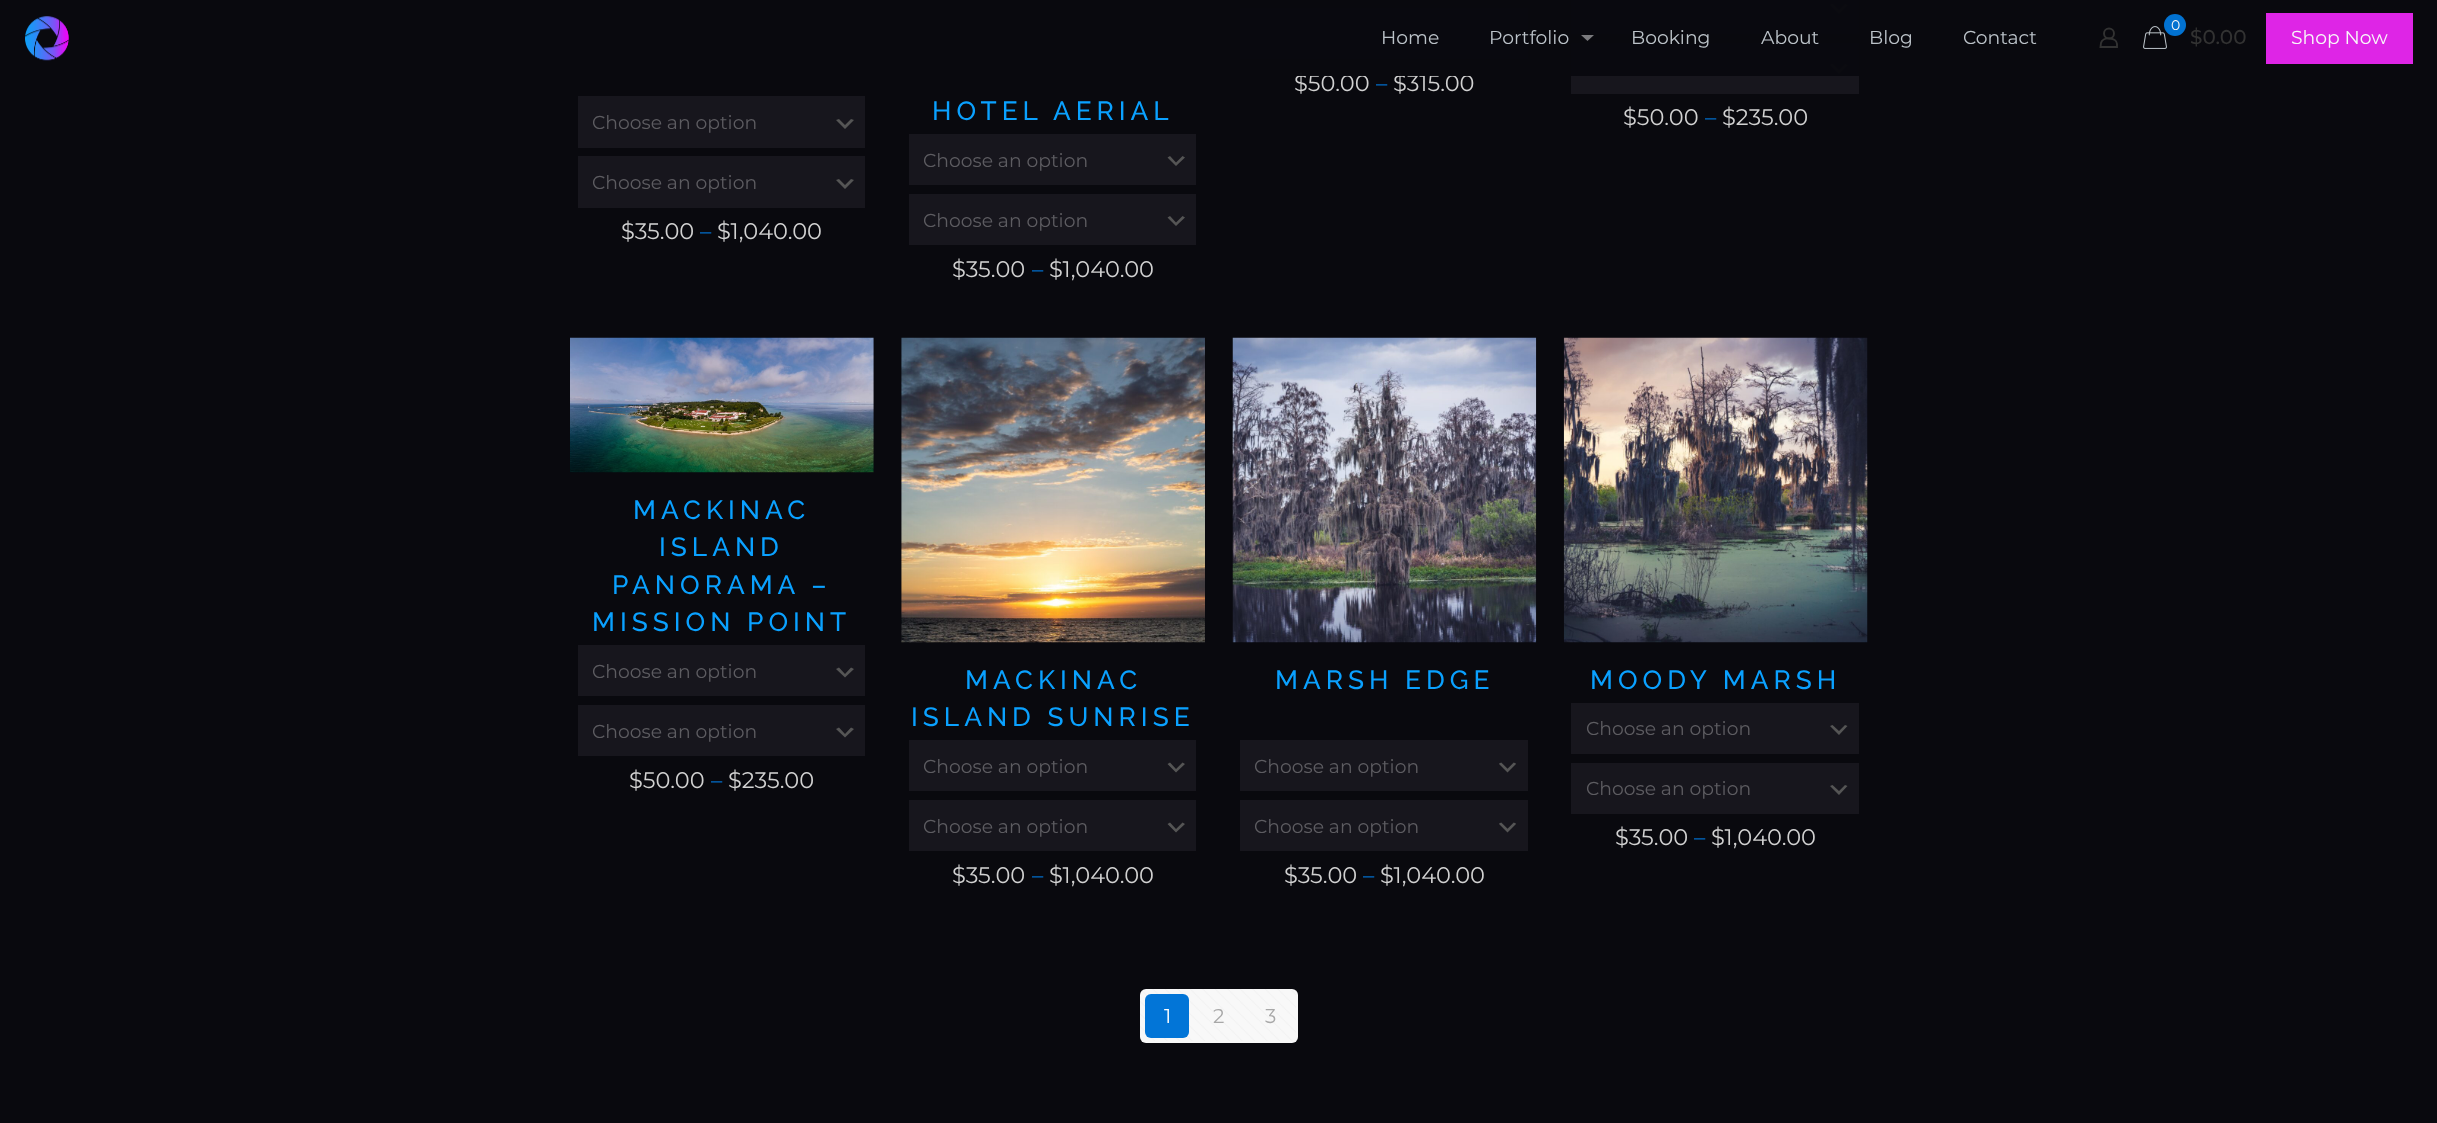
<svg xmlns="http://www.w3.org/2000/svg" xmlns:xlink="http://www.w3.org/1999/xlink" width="2437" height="1123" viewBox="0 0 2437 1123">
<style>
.cls-1{font:18.75px Montserrat;fill:#bcc3c9}
.cls-2{font:14px Montserrat;fill:#f8f8f8}
.cls-3{font:500 20px Montserrat;fill:#323232}
.cls-4{font:18.75px Montserrat;fill:#f8f8f8}
.cls-5{font:22.5px Montserrat;fill:#d1d1d1}
.cls-6{font:22.5px Montserrat;fill:#0275d7}
.cls-7{font:18.75px Montserrat;fill:#5d5c61}
.cls-8{font:500 26.25px Raleway;letter-spacing:5px;fill:#0aa1ff}
.cls-9{font:20px Montserrat;fill:#ffffff}
.cls-10{font:20px Montserrat;fill:#a8a8a8}
</style>
<rect width="100%" height="100%" fill="#09090e"/>
<image xlink:href="image0.png" x="25" y="16" width="44" height="45"/>
<circle fill="none" stroke="#323232" stroke-width="1.9" cx="2109" cy="33.5" r="5"/>
<path fill="none" stroke="#323232" stroke-width="1.9" d="M2117 44V47H2100.5L2101 43C2102.5 36.5 2117 37 2117 44Z"/>
<image xlink:href="image1.png" x="2143" y="26" width="24" height="23"/>
<circle fill="#0272d1" cx="2175" cy="25" r="11"/>
<rect fill="#ea28f2" x="2266" y="13" width="147" height="51"/>
<rect fill="#09090e" fill-opacity="0.05" x="2266" y="13" width="147" height="51"/>
<rect fill="#17161d" x="1240" y="8" width="288" height="51"/>
<image xlink:href="image2.png" x="1499" y="30" width="17" height="10"/>
<rect fill="#17161d" x="578" y="96" width="287" height="52"/>
<path fill="#555555" d="M839 119L845 125L851 119L854 120L845 129L836 120Z"/>
<rect fill="#17161d" x="578" y="156" width="287" height="52"/>
<path fill="#555555" d="M839 179L845 185L851 179L854 180L845 189L836 180Z"/>
<rect fill="#17161d" x="909" y="134" width="287" height="51"/>
<path fill="#555555" d="M1170 156L1176 162.5L1182.5 156L1185 157.5L1176 166L1167.5 157.5Z"/>
<rect fill="#17161d" x="909" y="194" width="287" height="51"/>
<path fill="#555555" d="M1170 216L1176 222.5L1182.5 216L1185 217.5L1176 226L1167.5 217.5Z"/>
<rect fill="#17161d" x="1571" y="0" width="288" height="34"/>
<path fill="#555555" d="M1832.5 4L1839 10L1845 4L1847.5 5L1839 14L1830 5Z"/>
<rect fill="#17161d" x="1571" y="43" width="288" height="51"/>
<path fill="#555555" d="M1832.5 64L1839 70L1845 64L1847.5 65L1839 74L1830 65Z"/>
<image xlink:href="image3.png" x="570" y="337" width="304" height="136"/>
<rect fill="#17161d" x="578" y="645" width="287" height="51"/>
<path fill="#555555" d="M839 667.5L845 674L851 667.5L854 669L845 677.5L836 669Z"/>
<rect fill="#17161d" x="578" y="705" width="287" height="51"/>
<path fill="#555555" d="M839 727.5L845 734L851 727.5L854 729L845 737.5L836 729Z"/>
<image xlink:href="image4.png" x="901" y="337" width="304" height="306"/>
<rect fill="#17161d" x="909" y="740" width="287" height="51"/>
<path fill="#555555" d="M1170 762.5L1176 769L1182.5 762.5L1185 764L1176 772.5L1167.5 764Z"/>
<rect fill="#17161d" x="909" y="800" width="287" height="51"/>
<path fill="#555555" d="M1170 822.5L1176 829L1182.5 822.5L1185 824L1176 832.5L1167.5 824Z"/>
<image xlink:href="image5.png" x="1232" y="337" width="305" height="306"/>
<rect fill="#17161d" x="1240" y="740" width="288" height="51"/>
<image xlink:href="image6.png" x="1499" y="762" width="17" height="11"/>
<rect fill="#17161d" x="1240" y="800" width="288" height="51"/>
<image xlink:href="image6.png" x="1499" y="822" width="17" height="11"/>
<image xlink:href="image7.png" x="1563" y="337" width="305" height="306"/>
<rect fill="#17161d" x="1571" y="703" width="288" height="51"/>
<path fill="#555555" d="M1832.5 725L1839 731L1845 725L1847.5 726L1839 735L1830 726Z"/>
<rect fill="#17161d" x="1571" y="763" width="288" height="51"/>
<path fill="#555555" d="M1832.5 785L1839 791L1845 785L1847.5 786L1839 795L1830 786Z"/>
<rect fill="#f8f8f8" x="1140" y="989" width="158" height="54" rx="6"/>
<image xlink:href="image8.png" x="1140" y="989" width="156" height="52"/>
<rect fill="#0275d7" x="1145" y="994" width="44" height="44" rx="6"/>
<text class="cls-1" x="1869" y="44">Blog</text>
<text class="cls-1" x="1963" y="44">Contact</text>
<text class="cls-2" x="2171" y="30">0</text>
<text class="cls-3" x="2190" y="44">$0.00</text>
<text class="cls-4" x="2291" y="44">Shop Now</text>
<text class="cls-5" x="1294" y="91">$50.00</text>
<text class="cls-6" x="1376" y="91">–</text>
<text class="cls-5" x="1393" y="91">$315.00</text>
<rect fill="#09090e" fill-opacity="0.97" x="1240" y="0" width="619" height="76"/>
<text class="cls-1" x="1761" y="44">About</text>
<text class="cls-1" x="1631" y="44">Booking</text>
<path fill="#7a7a7d" d="M1581 35H1594L1587.5 41Z"/>
<text class="cls-1" x="1489" y="44">Portfolio</text>
<text class="cls-1" x="1381" y="44">Home</text>
<text class="cls-7" x="592" y="129">Choose an option</text>
<text class="cls-7" x="592" y="189">Choose an option</text>
<text class="cls-5" x="621" y="239">$35.00</text>
<text class="cls-6" x="700" y="239">–</text>
<text class="cls-5" x="717" y="239">$1,040.00</text>
<text class="cls-8" x="932" y="120">HOTEL AERIAL</text>
<text class="cls-7" x="923" y="167">Choose an option</text>
<text class="cls-7" x="923" y="227">Choose an option</text>
<text class="cls-5" x="952" y="277">$35.00</text>
<text class="cls-6" x="1032" y="277">–</text>
<text class="cls-5" x="1049" y="277">$1,040.00</text>
<text class="cls-5" x="1623" y="125">$50.00</text>
<text class="cls-6" x="1705" y="125">–</text>
<text class="cls-5" x="1722" y="125">$235.00</text>
<text class="cls-8" x="633" y="519">MACKINAC</text>
<text class="cls-8" x="659" y="556">ISLAND</text>
<text class="cls-8" x="612" y="594">PANORAMA –</text>
<text class="cls-8" x="592" y="631">MISSION POINT</text>
<text class="cls-7" x="592" y="678">Choose an option</text>
<text class="cls-7" x="592" y="738">Choose an option</text>
<text class="cls-5" x="629" y="788">$50.00</text>
<text class="cls-6" x="711" y="788">–</text>
<text class="cls-5" x="728" y="788">$235.00</text>
<text class="cls-8" x="965" y="689">MACKINAC</text>
<text class="cls-8" x="911" y="726">ISLAND SUNRISE</text>
<text class="cls-7" x="923" y="773">Choose an option</text>
<text class="cls-7" x="923" y="833">Choose an option</text>
<text class="cls-5" x="952" y="883">$35.00</text>
<text class="cls-6" x="1032" y="883">–</text>
<text class="cls-5" x="1049" y="883">$1,040.00</text>
<text class="cls-8" x="1275" y="689">MARSH EDGE</text>
<text class="cls-7" x="1254" y="773">Choose an option</text>
<text class="cls-7" x="1254" y="833">Choose an option</text>
<text class="cls-5" x="1284" y="883">$35.00</text>
<text class="cls-6" x="1363" y="883">–</text>
<text class="cls-5" x="1380" y="883">$1,040.00</text>
<text class="cls-8" x="1590" y="689">MOODY MARSH</text>
<text class="cls-7" x="1586" y="735">Choose an option</text>
<text class="cls-7" x="1586" y="795">Choose an option</text>
<text class="cls-5" x="1615" y="845">$35.00</text>
<text class="cls-6" x="1694" y="845">–</text>
<text class="cls-5" x="1711" y="845">$1,040.00</text>
<text class="cls-9" x="1164" y="1023">1</text>
<text class="cls-10" x="1213" y="1023">2</text>
<text class="cls-10" x="1265" y="1023">3</text>
</svg>
